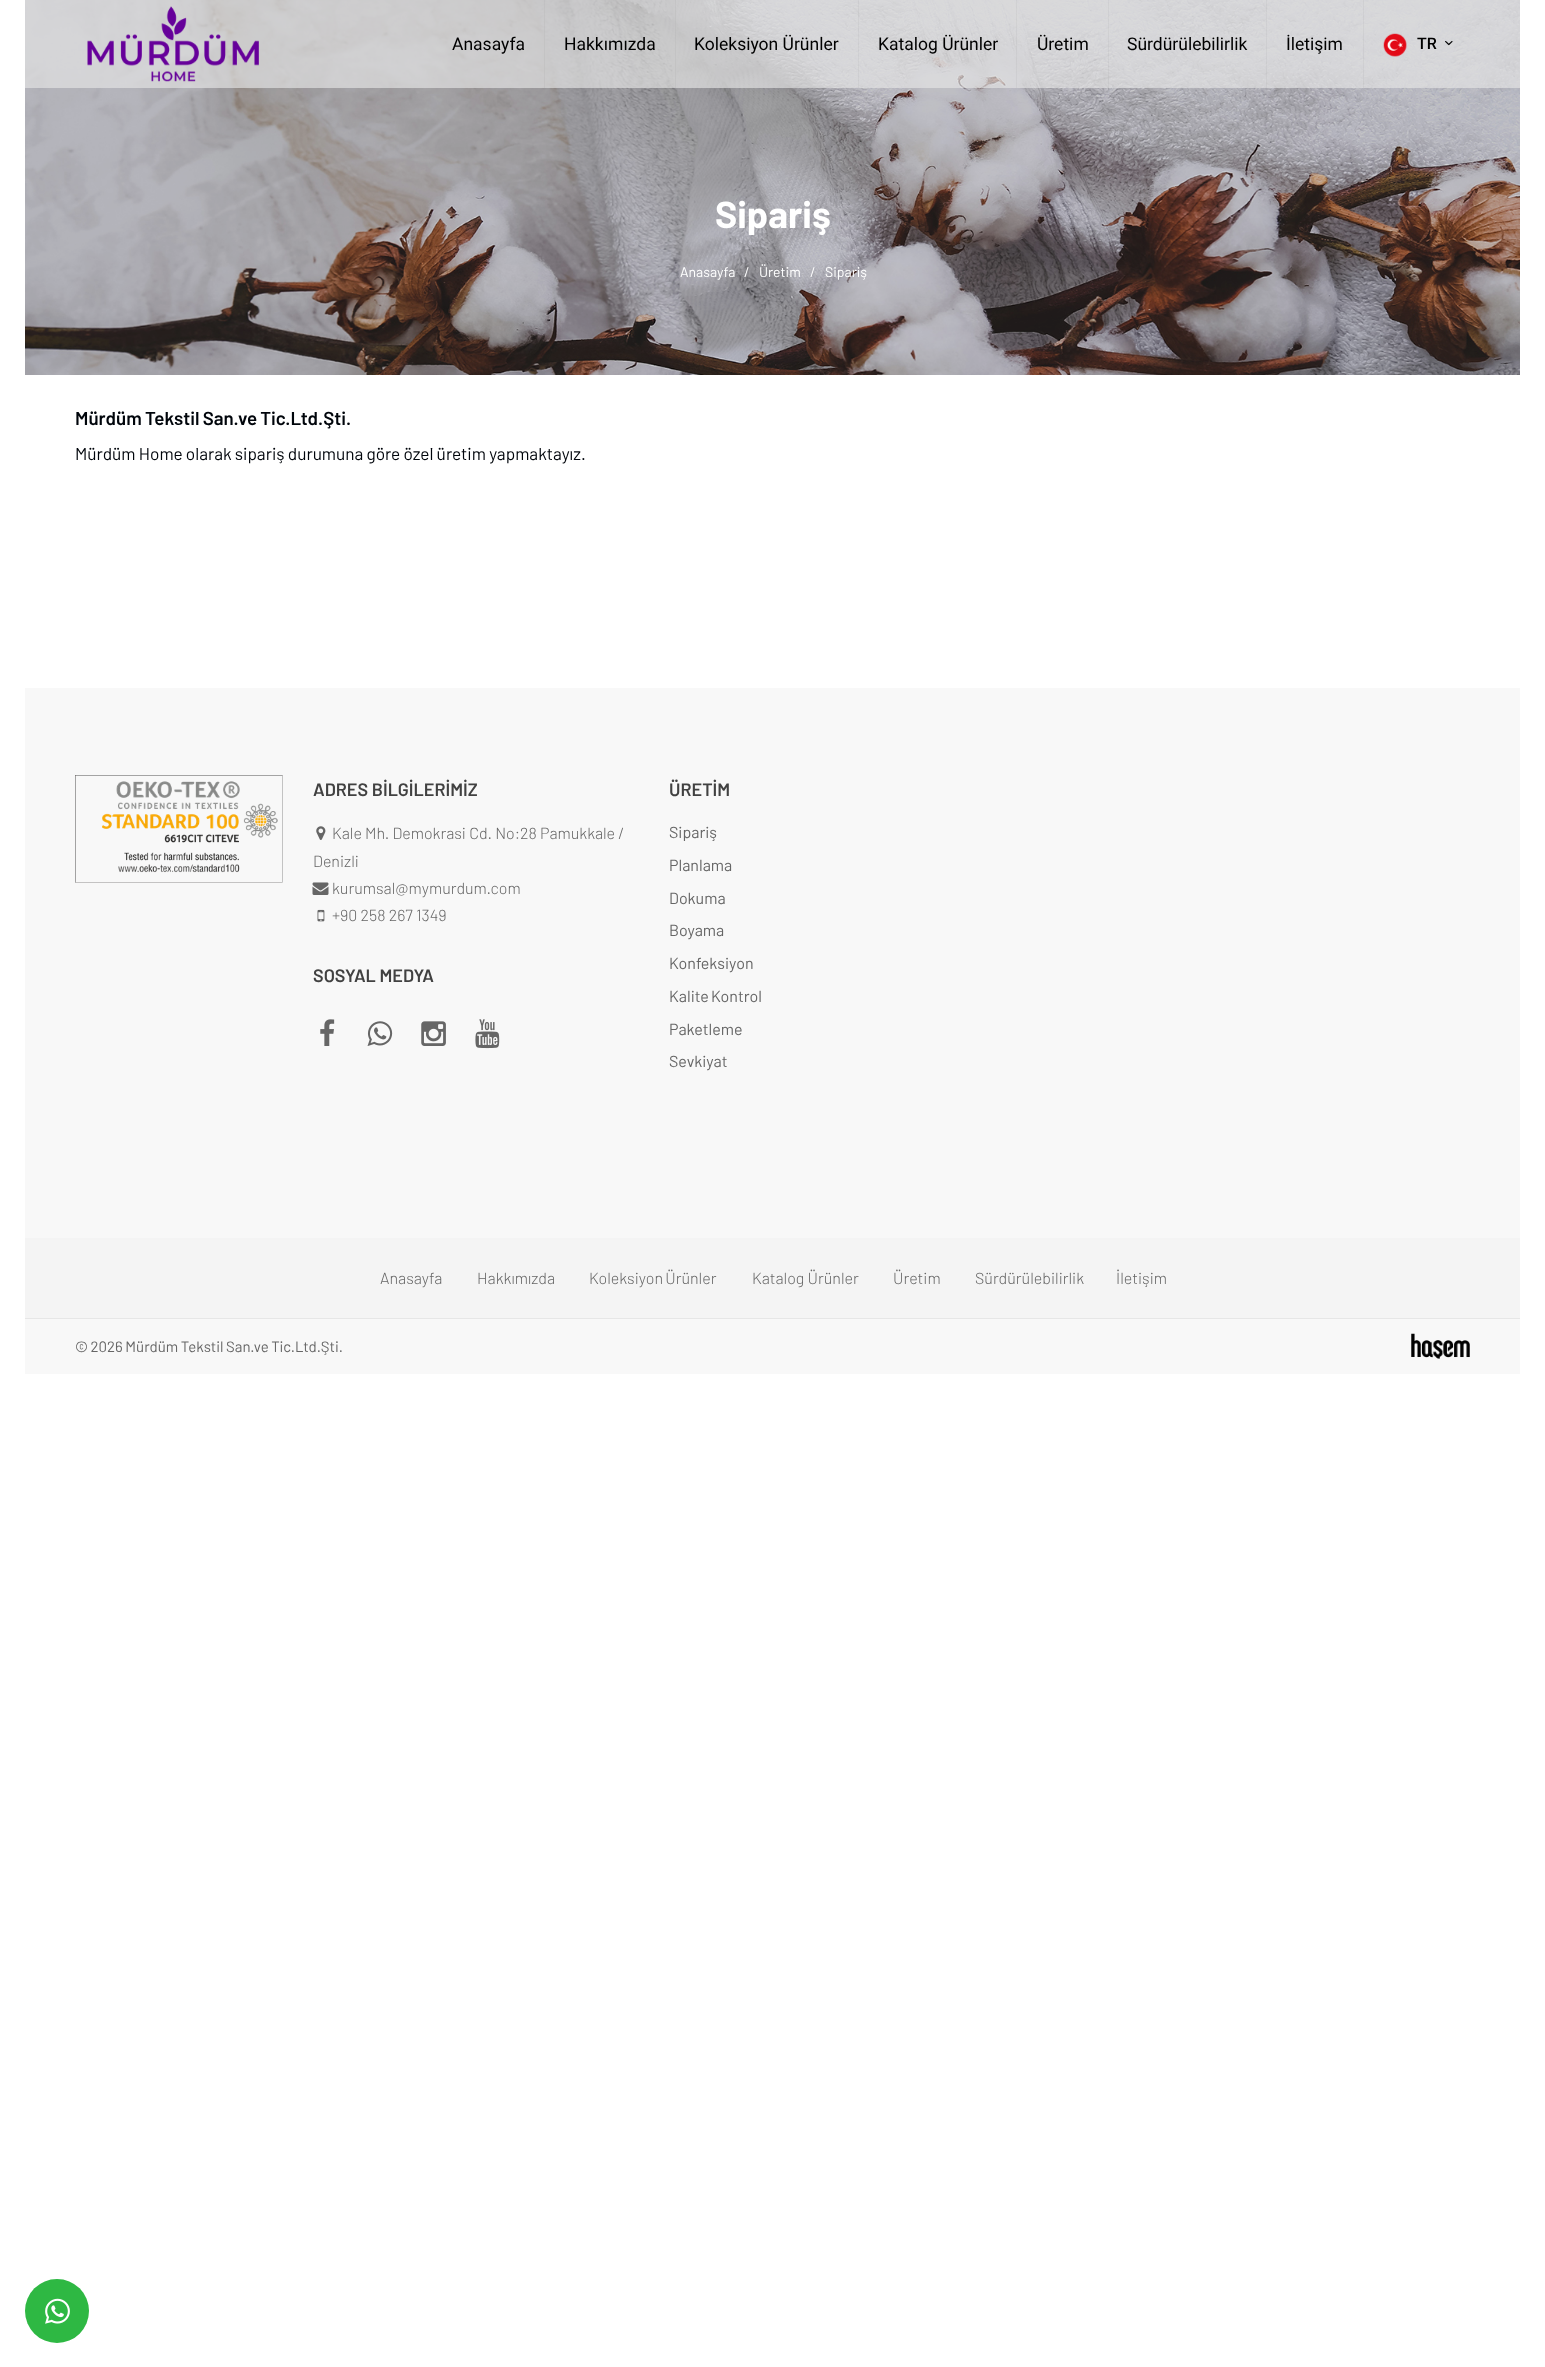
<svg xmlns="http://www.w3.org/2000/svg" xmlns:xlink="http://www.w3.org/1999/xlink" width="1545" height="2367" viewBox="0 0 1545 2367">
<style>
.cls-1{font:17.5px Roboto;fill:#000000}
.cls-2{font:500 16px Roboto;fill:#000000}
.cls-3{font:bold 37.5px Barlow;fill:#ffffff}
.cls-4{font:14px Barlow;fill:#ffffff}
.cls-5{font:600 18.75px Barlow;fill:#00050b}
.cls-6{font:17.2px Barlow;fill:#00050b}
.cls-7{font:600 18px Barlow;fill:#414141}
.cls-8{font:300 16px Barlow;fill:#666666}
.cls-9{font:16px Barlow;fill:#666666}
.cls-10{font:15px Barlow;fill:#666666}
</style>
<rect width="100%" height="100%" fill="#ffffff"/>
<image xlink:href="image3.png" x="25" y="0" width="1495" height="375"/>
<rect fill="#e5e5e5" fill-opacity="0.66" x="25" y="0" width="1495" height="88"/>
<image xlink:href="image0.png" x="87" y="6" width="172" height="76"/>
<rect fill="#8e8e8e" fill-opacity="0.11" x="544" y="0" width="1" height="88"/>
<rect fill="#8e8e8e" fill-opacity="0.11" x="675" y="0" width="1" height="88"/>
<rect fill="#8e8e8e" fill-opacity="0.11" x="858" y="0" width="1" height="88"/>
<rect fill="#8e8e8e" fill-opacity="0.11" x="1016" y="0" width="1" height="88"/>
<rect fill="#8e8e8e" fill-opacity="0.11" x="1108" y="0" width="1" height="88"/>
<rect fill="#8e8e8e" fill-opacity="0.11" x="1266" y="0" width="1" height="88"/>
<rect fill="#8e8e8e" fill-opacity="0.11" x="1363" y="0" width="1" height="88"/>
<image xlink:href="image1.png" x="1383" y="33" width="24" height="24"/>
<image xlink:href="image2.png" x="1445" y="41" width="8" height="5"/>
<rect fill="#f8f8f8" x="25" y="688" width="1495" height="686"/>
<image xlink:href="image4.png" x="75" y="775" width="208" height="108"/>
<image xlink:href="image5.png" x="316" y="826" width="10" height="14"/>
<image xlink:href="image6.png" x="312" y="882" width="17" height="13"/>
<image xlink:href="image7.png" x="317" y="909" width="8" height="13"/>
<image xlink:href="image8.png" x="320" y="1019" width="15" height="27"/>
<image xlink:href="image9.png" x="367" y="1021" width="26" height="25"/>
<image xlink:href="image10.png" x="421" y="1021" width="25" height="25"/>
<image xlink:href="image11.png" x="475" y="1019" width="25" height="30"/>
<rect fill="#f4f4f4" x="25" y="1238" width="1495" height="80"/>
<rect fill="#e6e6e6" x="25" y="1318" width="1495" height="1"/>
<image xlink:href="image12.png" x="1411" y="1333" width="59" height="26"/>
<circle fill="#2eb843" cx="57" cy="2311" r="32"/>
<image xlink:href="image13.png" x="45" y="2298" width="25" height="26"/>
<text class="cls-1" x="452" y="50">Anasayfa</text>
<text class="cls-1" x="564" y="50">Hakkımızda</text>
<text class="cls-1" x="694" y="50">Koleksiyon Ürünler</text>
<text class="cls-1" x="878" y="50">Katalog Ürünler</text>
<text class="cls-1" x="1037" y="50">Üretim</text>
<text class="cls-1" x="1127" y="50">Sürdürülebilirlik</text>
<text class="cls-1" x="1286" y="50">İletişim</text>
<text class="cls-2" x="1417" y="49">TR</text>
<text class="cls-3" x="715" y="228">Sipariş</text>
<text class="cls-4" x="680" y="277">Anasayfa</text>
<text class="cls-4" x="744" y="277">/</text>
<text class="cls-4" x="759" y="277">Üretim</text>
<text class="cls-4" x="810" y="277">/</text>
<text class="cls-4" x="825" y="277">Sipariş</text>
<text class="cls-5" x="75" y="425" word-spacing="-0.5">Mürdüm Tekstil San.ve Tic.Ltd.Şti.</text>
<text class="cls-6" x="75" y="460" word-spacing="-0.25">Mürdüm Home olarak sipariş durumuna göre özel üretim yapmaktayız.</text>
<text class="cls-7" x="313" y="796">ADRES BİLGİLERİMİZ</text>
<text class="cls-8" x="332" y="839">Kale Mh. Demokrasi Cd. No:28 Pamukkale /</text>
<text class="cls-8" x="313" y="867">Denizli</text>
<text class="cls-8"><tspan x="332" y="894">kurumsal@mymurdum.com</tspan><tspan x="332" y="921">+90 258 267 1349</tspan></text>
<text class="cls-7" x="313" y="982">SOSYAL MEDYA</text>
<text class="cls-7" x="669" y="796">ÜRETİM</text>
<text class="cls-9" x="669" y="838">Sipariş</text>
<text class="cls-9" x="669" y="871">Planlama</text>
<text class="cls-9" x="669" y="904">Dokuma</text>
<text class="cls-9" x="669" y="936">Boyama</text>
<text class="cls-9" x="669" y="969">Konfeksiyon</text>
<text class="cls-9" x="669" y="1002" word-spacing="-1">Kalite Kontrol</text>
<text class="cls-9" x="669" y="1035">Paketleme</text>
<text class="cls-9" x="669" y="1067">Sevkiyat</text>
<text class="cls-8" x="380" y="1284">Anasayfa</text>
<text class="cls-8" x="477" y="1284">Hakkımızda</text>
<text class="cls-8" x="589" y="1284" word-spacing="-1">Koleksiyon Ürünler</text>
<text class="cls-8" x="752" y="1284">Katalog Ürünler</text>
<text class="cls-8" x="893" y="1284">Üretim</text>
<text class="cls-8" x="975" y="1284">Sürdürülebilirlik</text>
<text class="cls-8" x="1116" y="1284">İletişim</text>
<text class="cls-10" x="75" y="1352" word-spacing="-0.5">© 2026 Mürdüm Tekstil San.ve Tic.Ltd.Şti.</text>
</svg>
